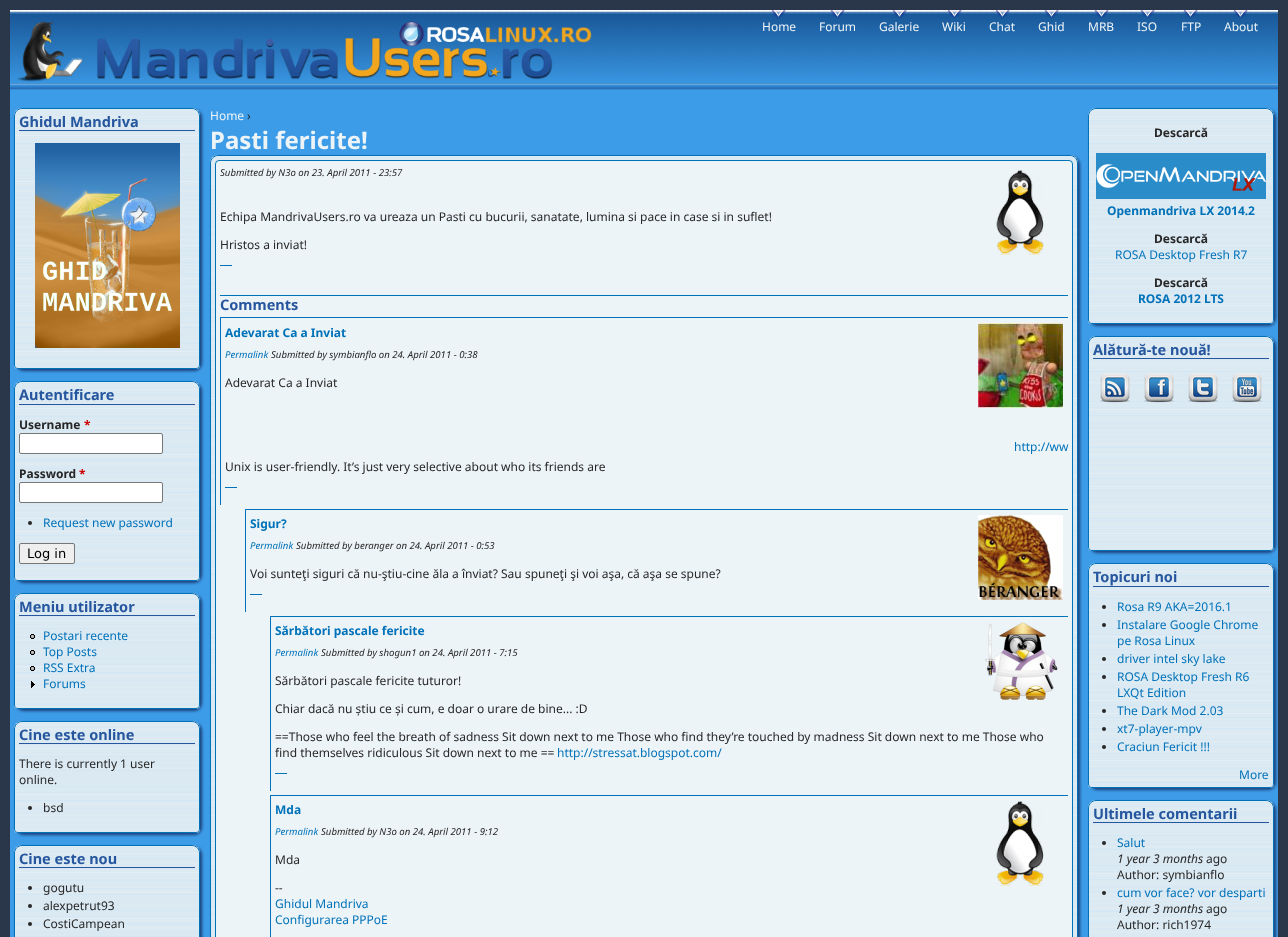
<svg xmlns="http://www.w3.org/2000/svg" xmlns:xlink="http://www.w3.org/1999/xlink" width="1288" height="937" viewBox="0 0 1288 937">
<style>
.cls-1{font:12px Noto Sans;fill:#edf4f7}
.cls-2{font:bold 14.5px Noto Sans;fill:#26569e}
.cls-3{font:bold 12px Noto Sans;fill:#272727}
.cls-4{font:bold 12px Noto Sans;fill:#cc0000}
.cls-5{font:12px Noto Sans;fill:#0072b9}
.cls-6{font:13px DejaVu Sans;fill:#000000}
.cls-7{font:12px Noto Sans;fill:#272727}
.cls-8{font:bold 24px Noto Sans;fill:#edf4f7}
.cls-9{font:italic 9.6px Noto Sans;fill:#272727}
.cls-10{font:bold 12px Noto Sans;fill:#0072b9}
.cls-11{font:italic 9.6px Noto Sans;fill:#0072b9}
.cls-12{font:italic 12px Noto Sans;fill:#272727}
</style>
<rect width="100%" height="100%" fill="#2a3649"/>
<rect fill="#3d9ce8" x="10" y="90" width="1268" height="847"/>
<image xlink:href="image0.png" x="10" y="10" width="1268" height="80"/>
<image xlink:href="image1.png" x="17" y="21" width="575" height="61"/>
<image xlink:href="image2.png" x="771" y="10" width="15" height="9"/>
<image xlink:href="image3.png" x="830" y="10" width="15" height="9"/>
<image xlink:href="image4.png" x="892" y="10" width="15" height="9"/>
<image xlink:href="image5.png" x="947" y="10" width="15" height="9"/>
<image xlink:href="image5.png" x="995" y="10" width="15" height="9"/>
<image xlink:href="image6.png" x="1044" y="10" width="15" height="9"/>
<image xlink:href="image3.png" x="1094" y="10" width="15" height="9"/>
<image xlink:href="image6.png" x="1140" y="10" width="15" height="9"/>
<image xlink:href="image7.png" x="1183" y="10" width="15" height="9"/>
<image xlink:href="image2.png" x="1233" y="10" width="15" height="9"/>
<rect fill="#1b407a" filter="blur(1.5px)" x="16" y="110" width="186" height="261" rx="8"/>
<image xlink:href="image8.png" x="14" y="108" width="186" height="261"/>
<path fill="none" stroke="#0072b9" d="M22 108.5H192C196 108.5 199.5 112 199.5 116V365C199.5 367 198 368.5 196 368.5H18C16 368.5 14.5 367 14.5 365V116C14.5 112 18 108.5 22 108.5Z"/>
<rect fill="#26569e" x="19" y="130" width="176" height="1"/>
<image xlink:href="image9.png" x="35" y="143" width="145" height="205"/>
<rect fill="#1b407a" filter="blur(1.5px)" x="16" y="383" width="186" height="200" rx="8"/>
<image xlink:href="image10.png" x="14" y="381" width="186" height="200"/>
<path fill="none" stroke="#0072b9" d="M22 381.5H192C196 381.5 199.5 385 199.5 389V577C199.5 579 198 580.5 196 580.5H18C16 580.5 14.5 579 14.5 577V389C14.5 385 18 381.5 22 381.5Z"/>
<rect fill="#26569e" x="19" y="404" width="176" height="1"/>
<rect fill="#ffffff" stroke="#767676" x="19.5" y="433.5" width="143" height="20" rx="1.5"/>
<rect fill="#ffffff" stroke="#767676" x="19.5" y="482.5" width="143" height="20" rx="1.5"/>
<circle fill="#272727" cx="30" cy="523" r="2"/>
<rect fill="#efefef" stroke="#767676" x="19.5" y="543.5" width="55" height="20" rx="1.5"/>
<rect fill="#1b407a" filter="blur(1.5px)" x="16" y="595" width="186" height="116" rx="8"/>
<image xlink:href="image11.png" x="14" y="593" width="186" height="116"/>
<path fill="none" stroke="#0072b9" d="M22 593.5H192C196 593.5 199.5 597 199.5 601V705C199.5 707 198 708.5 196 708.5H18C16 708.5 14.5 707 14.5 705V601C14.5 597 18 593.5 22 593.5Z"/>
<rect fill="#26569e" x="19" y="615" width="176" height="1"/>
<image xlink:href="image12.png" x="30" y="634" width="5" height="5"/>
<image xlink:href="image12.png" x="30" y="650" width="5" height="5"/>
<image xlink:href="image13.png" x="30" y="666" width="5" height="5"/>
<image xlink:href="image14.png" x="31" y="681" width="4" height="7"/>
<rect fill="#1b407a" filter="blur(1.5px)" x="16" y="723" width="186" height="112" rx="8"/>
<image xlink:href="image15.png" x="14" y="721" width="186" height="112"/>
<path fill="none" stroke="#0072b9" d="M22 721.5H192C196 721.5 199.5 725 199.5 729V829C199.5 831 198 832.5 196 832.5H18C16 832.5 14.5 831 14.5 829V729C14.5 725 18 721.5 22 721.5Z"/>
<rect fill="#26569e" x="19" y="743" width="176" height="1"/>
<circle fill="#272727" cx="30" cy="808" r="2"/>
<rect fill="#1b407a" filter="blur(1.5px)" x="16" y="847" width="186" height="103" rx="8"/>
<image xlink:href="image16.png" x="14" y="845" width="186" height="92"/>
<path fill="none" stroke="#0072b9" d="M22 845.5H192C196 845.5 199.5 849 199.5 853V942C199.5 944 198 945.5 196 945.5H18C16 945.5 14.5 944 14.5 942V853C14.5 849 18 845.5 22 845.5Z"/>
<rect fill="#26569e" x="19" y="867" width="176" height="1"/>
<circle fill="#272727" cx="30" cy="888" r="2"/>
<circle fill="#272727" cx="30" cy="906" r="2"/>
<circle fill="#272727" cx="30" cy="924" r="2"/>
<rect fill="#1b407a" filter="blur(1.5px)" x="212" y="157" width="868" height="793" rx="8"/>
<image xlink:href="image17.png" x="210" y="155" width="868" height="782"/>
<path fill="none" stroke="#0072b9" d="M218 155.5H1070C1074 155.5 1077.5 159 1077.5 163V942C1077.5 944 1076 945.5 1074 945.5H214C212 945.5 210.5 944 210.5 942V163C210.5 159 214 155.5 218 155.5Z"/>
<rect fill="#edf4f7" stroke="#0072b9" x="215.5" y="160.5" width="857" height="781" rx="3.5"/>
<image xlink:href="image18.png" x="996" y="170" width="48" height="85"/>
<rect fill="#0072b9" x="220" y="265" width="12" height="1"/>
<rect fill="#0072b9" x="220" y="295" width="848" height="1"/>
<rect fill="#0072b9" x="220" y="317" width="848" height="1"/>
<rect fill="#0072b9" x="220" y="317" width="1" height="188"/>
<image xlink:href="image19.png" x="978" y="323" width="85" height="85"/>
<rect fill="#0072b9" x="225" y="487" width="12" height="1"/>
<rect fill="#0072b9" x="245" y="509" width="823" height="1"/>
<rect fill="#0072b9" x="245" y="509" width="1" height="103"/>
<image xlink:href="image20.png" x="978" y="515" width="85" height="85"/>
<rect fill="#0072b9" x="250" y="594" width="12" height="1"/>
<rect fill="#0072b9" x="270" y="616" width="798" height="1"/>
<rect fill="#0072b9" x="270" y="616" width="1" height="175"/>
<image xlink:href="image21.png" x="985" y="622" width="73" height="78"/>
<rect fill="#0072b9" x="275" y="773" width="12" height="1"/>
<rect fill="#0072b9" x="270" y="795" width="798" height="1"/>
<rect fill="#0072b9" x="270" y="795" width="1" height="142"/>
<image xlink:href="image18.png" x="996" y="801" width="48" height="85"/>
<rect fill="#1b407a" filter="blur(1.5px)" x="1090" y="110" width="186" height="216" rx="8"/>
<image xlink:href="image22.png" x="1088" y="108" width="186" height="216"/>
<path fill="none" stroke="#0072b9" d="M1096 108.5H1266C1270 108.5 1273.5 112 1273.5 116V320C1273.5 322 1272 323.5 1270 323.5H1092C1090 323.5 1088.5 322 1088.5 320V116C1088.5 112 1092 108.5 1096 108.5Z"/>
<image xlink:href="image23.png" x="1096" y="153" width="170" height="46"/>
<rect fill="#1b407a" filter="blur(1.5px)" x="1090" y="338" width="186" height="215" rx="8"/>
<image xlink:href="image24.png" x="1088" y="336" width="186" height="215"/>
<path fill="none" stroke="#0072b9" d="M1096 336.5H1266C1270 336.5 1273.5 340 1273.5 344V547C1273.5 549 1272 550.5 1270 550.5H1092C1090 550.5 1088.5 549 1088.5 547V344C1088.5 340 1092 336.5 1096 336.5Z"/>
<rect fill="#26569e" x="1093" y="358" width="176" height="1"/>
<image xlink:href="image25.png" x="1100" y="373" width="30" height="30"/>
<image xlink:href="image26.png" x="1144" y="373" width="30" height="30"/>
<image xlink:href="image27.png" x="1188" y="373" width="30" height="30"/>
<image xlink:href="image28.png" x="1232" y="373" width="30" height="30"/>
<rect fill="#1b407a" filter="blur(1.5px)" x="1090" y="565" width="186" height="225" rx="8"/>
<image xlink:href="image29.png" x="1088" y="563" width="186" height="225"/>
<path fill="none" stroke="#0072b9" d="M1096 563.5H1266C1270 563.5 1273.5 567 1273.5 571V784C1273.5 786 1272 787.5 1270 787.5H1092C1090 787.5 1088.5 786 1088.5 784V571C1088.5 567 1092 563.5 1096 563.5Z"/>
<rect fill="#26569e" x="1093" y="586" width="176" height="1"/>
<circle fill="#272727" cx="1104" cy="607" r="2"/>
<circle fill="#272727" cx="1104" cy="625" r="2"/>
<circle fill="#272727" cx="1104" cy="659" r="2"/>
<circle fill="#272727" cx="1104" cy="677" r="2"/>
<circle fill="#272727" cx="1104" cy="711" r="2"/>
<circle fill="#272727" cx="1104" cy="729" r="2"/>
<circle fill="#272727" cx="1104" cy="747" r="2"/>
<rect fill="#1b407a" filter="blur(1.5px)" x="1090" y="802" width="186" height="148" rx="8"/>
<image xlink:href="image30.png" x="1088" y="800" width="186" height="137"/>
<path fill="none" stroke="#0072b9" d="M1096 800.5H1266C1270 800.5 1273.5 804 1273.5 808V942C1273.5 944 1272 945.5 1270 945.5H1092C1090 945.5 1088.5 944 1088.5 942V808C1088.5 804 1092 800.5 1096 800.5Z"/>
<rect fill="#26569e" x="1093" y="822" width="176" height="1"/>
<circle fill="#272727" cx="1104" cy="843" r="2"/>
<circle fill="#272727" cx="1104" cy="893" r="2"/>
<text class="cls-1" x="762" y="31">Home</text>
<text class="cls-1" x="819" y="31">Forum</text>
<text class="cls-1" x="879" y="31">Galerie</text>
<text class="cls-1" x="942" y="31">Wiki</text>
<text class="cls-1" x="989" y="31">Chat</text>
<text class="cls-1" x="1038" y="31">Ghid</text>
<text class="cls-1" x="1088" y="31">MRB</text>
<text class="cls-1" x="1137" y="31">ISO</text>
<text class="cls-1" x="1181" y="31">FTP</text>
<text class="cls-1" x="1224" y="31">About</text>
<text class="cls-2" x="19" y="127">Ghidul Mandriva</text>
<text class="cls-2" x="19" y="400">Autentificare</text>
<text class="cls-3" x="19" y="429">Username</text>
<text class="cls-4" x="84" y="429">*</text>
<text class="cls-3" x="19" y="478">Password</text>
<text class="cls-4" x="79" y="478">*</text>
<text class="cls-5" x="43" y="527">Request new password</text>
<text class="cls-6" x="27" y="558">Log in</text>
<text class="cls-2" x="19" y="612">Meniu utilizator</text>
<text class="cls-5"><tspan x="43" y="640">Postari recente</tspan><tspan x="43" y="656">Top Posts</tspan><tspan x="43" y="672">RSS Extra</tspan><tspan x="43" y="688">Forums</tspan></text>
<text class="cls-2" x="19" y="740">Cine este online</text>
<text class="cls-7"><tspan x="19" y="768">There is currently 1 user</tspan><tspan x="19" y="784">online.</tspan></text>
<text class="cls-7" x="43" y="812">bsd</text>
<text class="cls-2" x="19" y="864">Cine este nou</text>
<text class="cls-7"><tspan x="43" y="892">gogutu</tspan><tspan x="43" y="910">alexpetrut93</tspan><tspan x="43" y="928">CostiCampean</tspan></text>
<text class="cls-1" x="210" y="120">Home</text>
<text class="cls-7" x="247" y="120">›</text>
<text class="cls-8" x="210" y="149">Pasti fericite!</text>
<text class="cls-9" x="220" y="176">Submitted by N3o on 23. April 2011 - 23:57</text>
<text class="cls-7" x="220" y="221">Echipa MandrivaUsers.ro va ureaza un Pasti cu bucurii, sanatate, lumina si pace in case si in suflet!</text>
<text class="cls-7" x="220" y="249">Hristos a inviat!</text>
<text class="cls-2" x="220" y="310">Comments</text>
<text class="cls-10" x="225" y="337">Adevarat Ca a Inviat</text>
<text class="cls-11" x="225" y="358">Permalink</text>
<text class="cls-9" x="271" y="358">Submitted by symbianflo on 24. April 2011 - 0:38</text>
<text class="cls-7" x="225" y="387">Adevarat Ca a Inviat</text>
<text class="cls-5" x="1014" y="451">http://ww</text>
<text class="cls-7" x="225" y="471">Unix is user-friendly. It’s just very selective about who its friends are</text>
<text class="cls-10" x="250" y="528">Sigur?</text>
<text class="cls-11" x="250" y="549">Permalink</text>
<text class="cls-9" x="296" y="549">Submitted by beranger on 24. April 2011 - 0:53</text>
<text class="cls-7" x="250" y="578">Voi sunteţi siguri că nu-ştiu-cine ăla a înviat? Sau spuneţi şi voi aşa, că aşa se spune?</text>
<text class="cls-10" x="275" y="635">Sărbători pascale fericite</text>
<text class="cls-11" x="275" y="656">Permalink</text>
<text class="cls-9" x="321" y="656">Submitted by shogun1 on 24. April 2011 - 7:15</text>
<text class="cls-7" x="275" y="685">Sărbători pascale fericite tuturor!</text>
<text class="cls-7" x="275" y="713">Chiar dacă nu știu ce și cum, e doar o urare de bine... :D</text>
<text class="cls-7"><tspan x="275" y="741">==Those who feel the breath of sadness Sit down next to me Those who find they’re touched by madness Sit down next to me Those who</tspan><tspan x="275" y="757">find themselves ridiculous Sit down next to me ==</tspan></text>
<text class="cls-5" x="557" y="757">http://stressat.blogspot.com/</text>
<text class="cls-10" x="275" y="814">Mda</text>
<text class="cls-11" x="275" y="835">Permalink</text>
<text class="cls-9" x="321" y="835">Submitted by N3o on 24. April 2011 - 9:12</text>
<text class="cls-7" x="275" y="864">Mda</text>
<text class="cls-7" x="275" y="892">--</text>
<text class="cls-5"><tspan x="275" y="908">Ghidul Mandriva</tspan><tspan x="275" y="924">Configurarea PPPoE</tspan></text>
<text class="cls-3" x="1154" y="137">Descarcă</text>
<text class="cls-10" x="1107" y="215">Openmandriva LX 2014.2</text>
<text class="cls-3" x="1154" y="243">Descarcă</text>
<text class="cls-5" x="1115" y="259">ROSA Desktop Fresh R7</text>
<text class="cls-3" x="1154" y="287">Descarcă</text>
<text class="cls-10" x="1138" y="303">ROSA 2012 LTS</text>
<text class="cls-2" x="1093" y="355">Alătură-te nouă!</text>
<text class="cls-2" x="1093" y="582">Topicuri noi</text>
<text class="cls-5"><tspan x="1117" y="611">Rosa R9 AKA=2016.1</tspan><tspan x="1117" y="629">Instalare Google Chrome</tspan><tspan x="1117" y="645">pe Rosa Linux</tspan><tspan x="1117" y="663">driver intel sky lake</tspan><tspan x="1117" y="681">ROSA Desktop Fresh R6</tspan><tspan x="1117" y="697">LXQt Edition</tspan><tspan x="1117" y="715">The Dark Mod 2.03</tspan><tspan x="1117" y="733">xt7-player-mpv</tspan><tspan x="1117" y="751">Craciun Fericit !!!</tspan></text>
<text class="cls-5" x="1239" y="779">More</text>
<text class="cls-2" x="1093" y="819">Ultimele comentarii</text>
<text class="cls-5" x="1117" y="847">Salut</text>
<text class="cls-12" x="1117" y="863">1 year 3 months</text>
<text class="cls-7" x="1206" y="863">ago</text>
<text class="cls-7" x="1117" y="879">Author: symbianflo</text>
<text class="cls-5" x="1117" y="897">cum vor face? vor desparti</text>
<text class="cls-12" x="1117" y="913">1 year 3 months</text>
<text class="cls-7" x="1206" y="913">ago</text>
<text class="cls-7" x="1117" y="929">Author: rich1974</text>
</svg>
